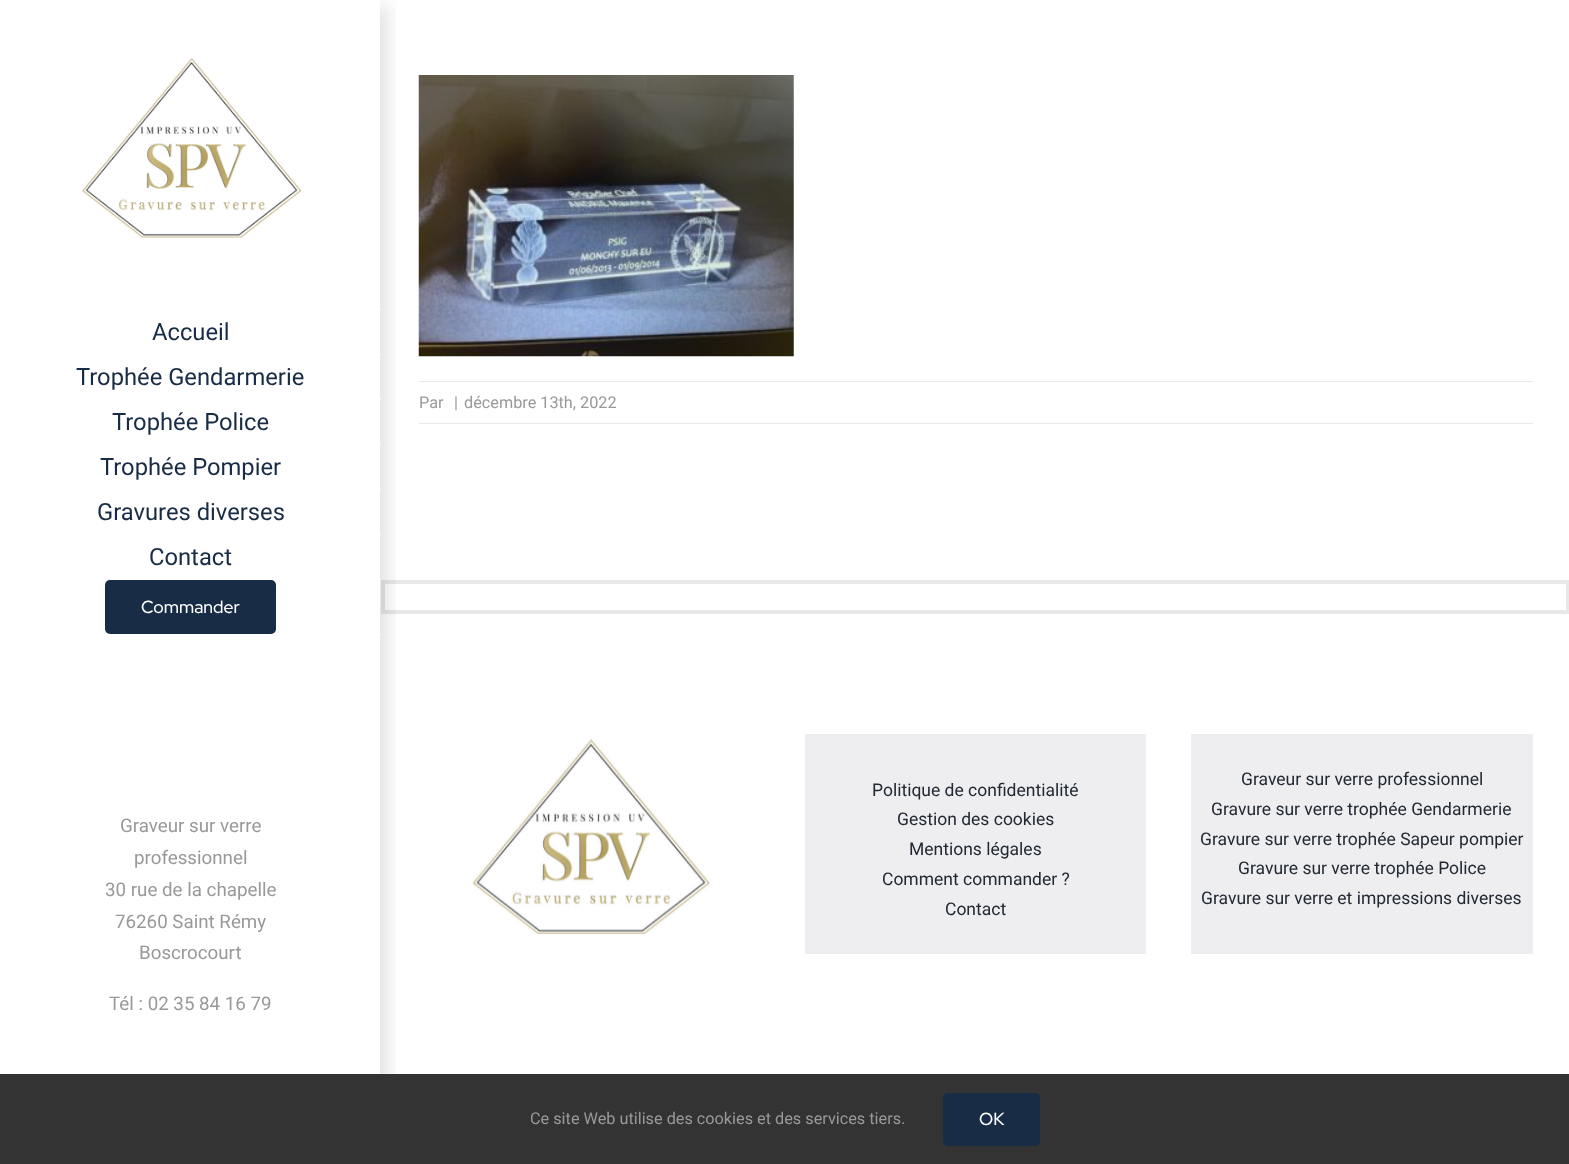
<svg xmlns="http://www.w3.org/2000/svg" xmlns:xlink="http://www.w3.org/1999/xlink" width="1569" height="1164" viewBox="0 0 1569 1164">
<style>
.cls-1{font:23.75px Roboto;fill:#182c45}
.cls-2{font:500 17.5px Red Hat Display;fill:#ffffff}
.cls-3{font:18.75px Roboto;fill:#999999}
.cls-4{font:16.25px Roboto;fill:#999999}
.cls-5{font:17.5px Roboto;fill:#212934}
</style>
<defs>
<clipPath id="clip1"><rect x="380" y="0" width="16" height="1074"/></clipPath>
</defs>
<rect width="100%" height="100%" fill="#ffffff"/>
<image xlink:href="image0.png" x="82" y="57" width="220" height="181"/>
<rect fill="none" stroke="#e8e8e8" stroke-width="4" x="383" y="582" width="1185" height="30"/>
<g clip-path="url(#clip1)">
<rect fill="#000000" fill-opacity="0.14" filter="blur(9.5px)" x="368" y="6" width="18" height="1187"/>
</g>
<rect fill="#ffffff" x="380" y="309" width="1" height="1"/>
<rect fill="#ffffff" x="380" y="354" width="1" height="1"/>
<rect fill="#ffffff" x="380" y="399" width="1" height="1"/>
<rect fill="#ffffff" x="380" y="444" width="1" height="1"/>
<rect fill="#ffffff" x="380" y="489" width="1" height="1"/>
<rect fill="#ffffff" x="380" y="534" width="1" height="1"/>
<rect fill="#ffffff" x="380" y="579" width="1" height="1"/>
<rect fill="#ffffff" x="380" y="634" width="1" height="1"/>
<rect fill="#182c45" x="105" y="580" width="171" height="54" rx="5"/>
<image xlink:href="image1.png" x="418" y="75" width="376" height="282"/>
<rect fill="#e8e8e8" x="419" y="381" width="1114" height="1"/>
<rect fill="#e8e8e8" x="419" y="423" width="1114" height="1"/>
<image xlink:href="image2.png" x="472" y="738" width="239" height="196"/>
<rect fill="#eeedef" x="805" y="734" width="341" height="220"/>
<rect fill="#eeedef" x="1191" y="734" width="342" height="220"/>
<rect fill="#333333" x="0" y="1074" width="1569" height="90"/>
<rect fill="#182c45" x="943" y="1093" width="97" height="53" rx="5"/>
<text class="cls-1" x="152" y="340">Accueil</text>
<text class="cls-1" x="76" y="385">Trophée Gendarmerie</text>
<text class="cls-1" x="112" y="430">Trophée Police</text>
<text class="cls-1" x="100" y="475">Trophée Pompier</text>
<text class="cls-1" x="97" y="520">Gravures diverses</text>
<text class="cls-1" x="149" y="565">Contact</text>
<text class="cls-2" x="141" y="613">Commander</text>
<text class="cls-3" x="120" y="832">Graveur sur verre</text>
<text class="cls-3" x="134" y="864">professionnel</text>
<text class="cls-3" x="105" y="896">30 rue de la chapelle</text>
<text class="cls-3" x="115" y="928">76260 Saint Rémy</text>
<text class="cls-3" x="139" y="959">Boscrocourt</text>
<text class="cls-3" x="109" y="1010">Tél : 02 35 84 16 79</text>
<text class="cls-4" x="419" y="408">Par</text>
<text class="cls-4" x="454" y="408">|</text>
<text class="cls-4" x="464" y="408">décembre 13th, 2022</text>
<text class="cls-5" x="872" y="796">Politique de confidentialité</text>
<text class="cls-5" x="897" y="825">Gestion des cookies</text>
<text class="cls-5" x="909" y="855">Mentions légales</text>
<text class="cls-5" x="882" y="885">Comment commander ?</text>
<text class="cls-5" x="945" y="915">Contact</text>
<text class="cls-5" x="1241" y="785">Graveur sur verre professionnel</text>
<text class="cls-5" x="1211" y="815">Gravure sur verre trophée Gendarmerie</text>
<text class="cls-5" x="1200" y="845">Gravure sur verre trophée Sapeur pompier</text>
<text class="cls-5" x="1238" y="874">Gravure sur verre trophée Police</text>
<text class="cls-5" x="1201" y="904">Gravure sur verre et impressions diverses</text>
<text class="cls-4" x="530" y="1124">Ce site Web utilise des cookies et des services tiers.</text>
<text class="cls-2" x="979" y="1125">OK</text>
</svg>
